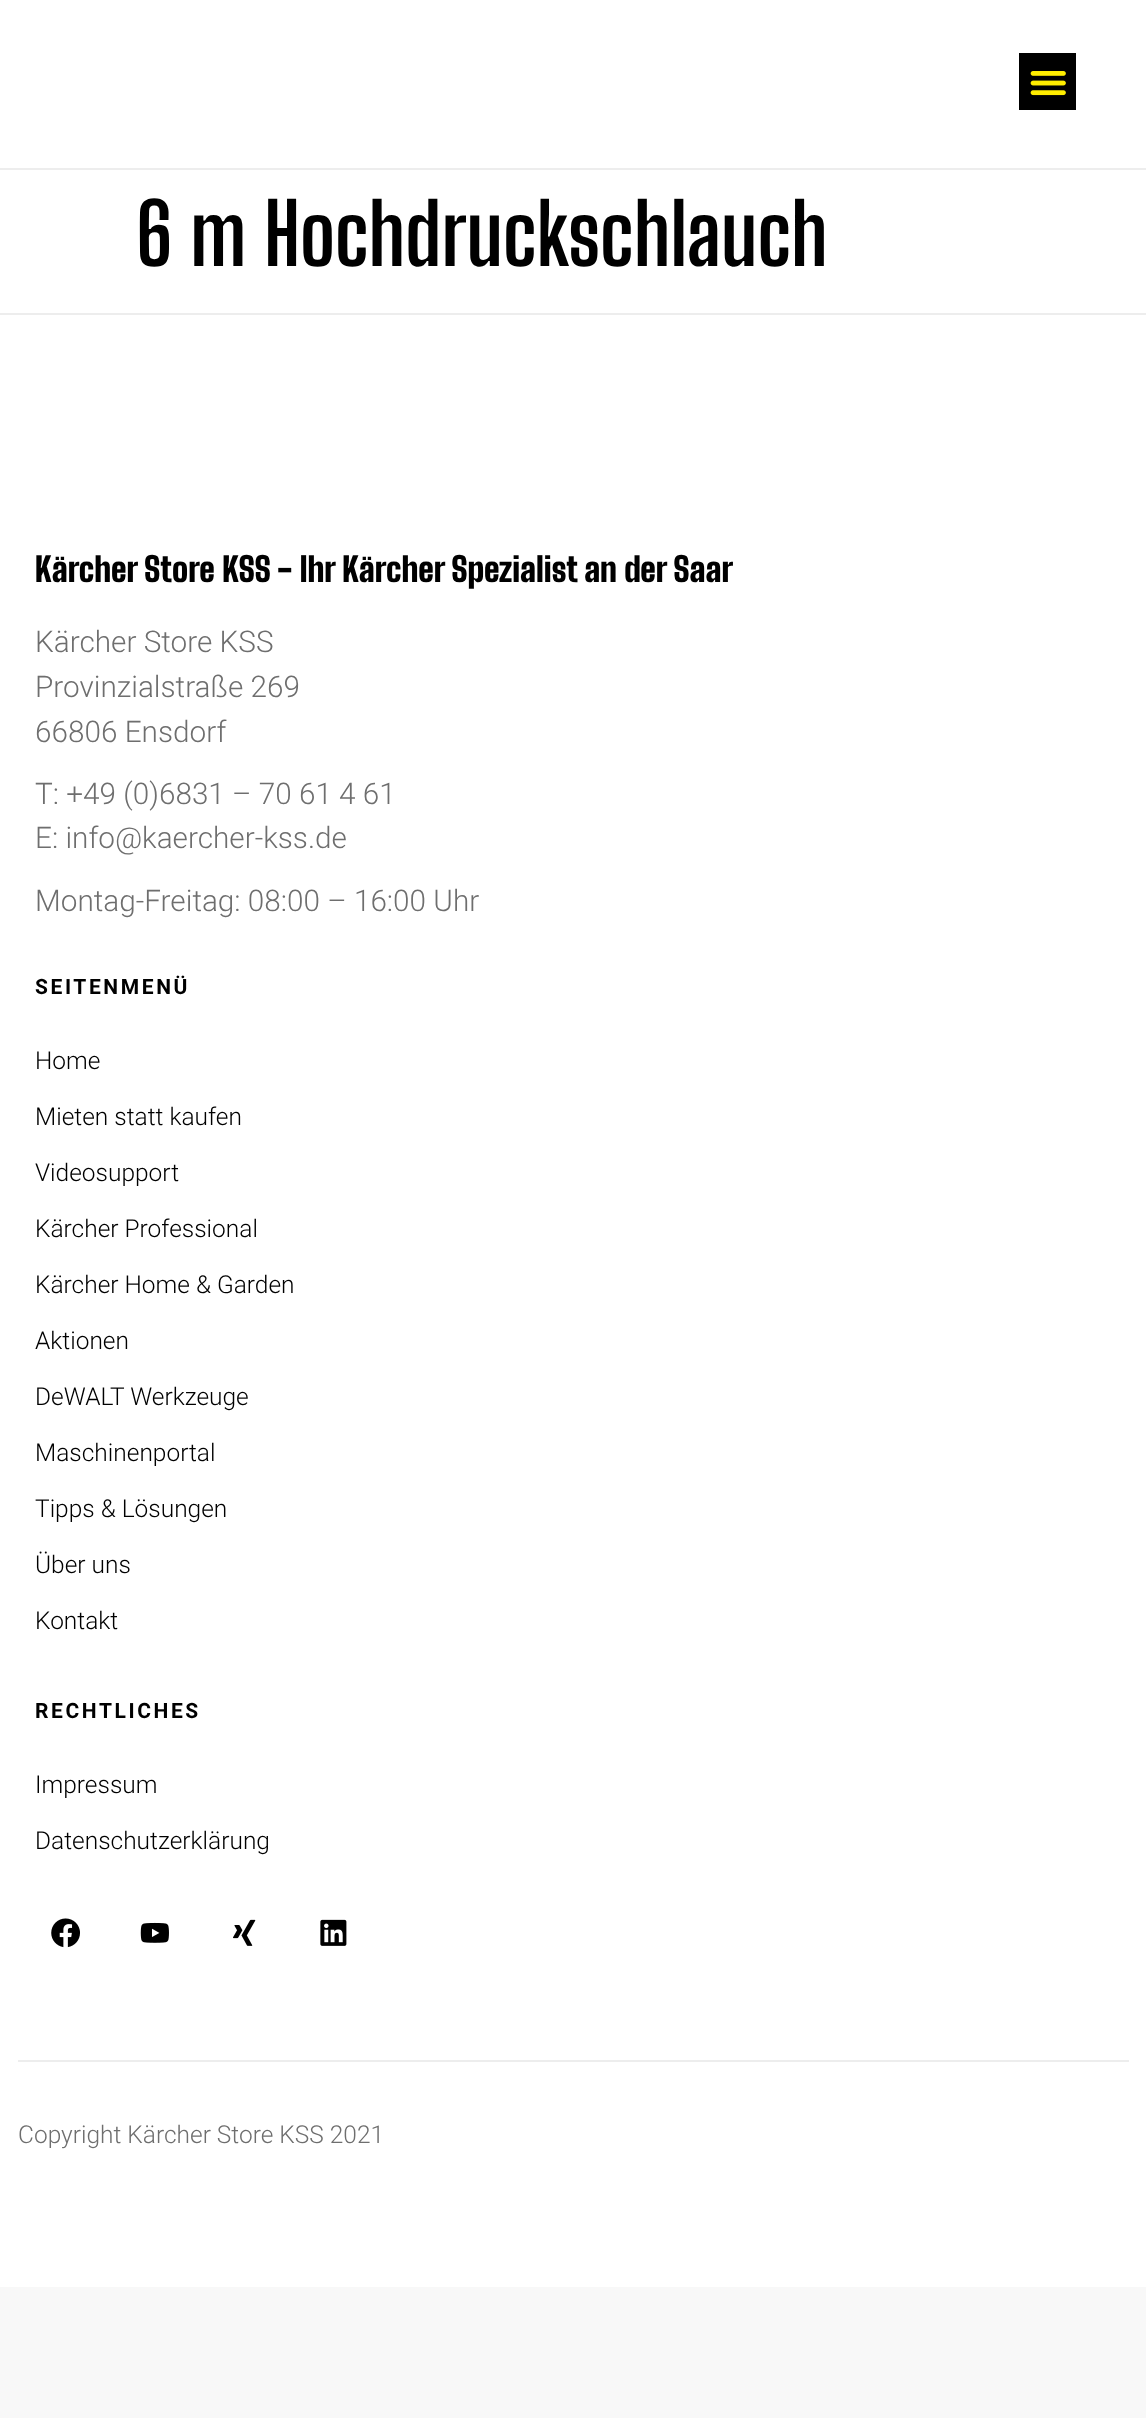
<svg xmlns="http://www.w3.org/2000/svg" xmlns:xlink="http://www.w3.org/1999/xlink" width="1146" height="2418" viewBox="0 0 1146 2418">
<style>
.cls-1{font:bold 84px Big Shoulders Display;fill:#000000}
.cls-2{font:900 33.6px Big Shoulders Display;fill:#000000}
.cls-3{font:300 29.75px Roboto;fill:#6e6e6e}
.cls-4{font:bold 21px Roboto;letter-spacing:2.6px;fill:#000000}
.cls-5{font:300 24.5px Roboto;fill:#000000}
.cls-6{font:300 24.5px Roboto;fill:#6e6e6e}
</style>
<rect width="100%" height="100%" fill="#ffffff"/>
<rect fill="#ededed" x="0" y="168" width="1146" height="2"/>
<rect fill="#000000" x="1019" y="53" width="57" height="57"/>
<image xlink:href="image0.png" x="1030" y="71" width="36" height="25"/>
<rect fill="#ededed" x="0" y="313" width="1146" height="2"/>
<image xlink:href="image1.png" x="51" y="1918" width="29" height="30"/>
<image xlink:href="image2.png" x="140" y="1922" width="29" height="21"/>
<image xlink:href="image3.png" x="233" y="1919" width="23" height="27"/>
<image xlink:href="image4.png" x="320" y="1919" width="27" height="27"/>
<rect fill="#ededed" x="18" y="2060" width="1111" height="2"/>
<rect fill="#f8f8f8" x="0" y="2287" width="1146" height="131"/>
<text class="cls-1" x="136" y="266">6 m Hochdruckschlauch</text>
<text class="cls-2" x="35" y="582">Kärcher Store KSS - Ihr Kärcher Spezialist an der Saar</text>
<text class="cls-3"><tspan x="35" y="652">Kärcher Store KSS</tspan><tspan x="35" y="697">Provinzialstraße 269</tspan><tspan x="35" y="742">66806 Ensdorf</tspan></text>
<text class="cls-3"><tspan x="35" y="804">T: +49 (0)6831 – 70 61 4 61</tspan><tspan x="35" y="848">E: info@kaercher-kss.de</tspan></text>
<text class="cls-3" x="35" y="911">Montag-Freitag: 08:00 – 16:00 Uhr</text>
<text class="cls-4" x="35" y="994">SEITENMENÜ</text>
<text class="cls-5" x="35" y="1069">Home</text>
<text class="cls-5" x="35" y="1125">Mieten statt kaufen</text>
<text class="cls-5" x="35" y="1181">Videosupport</text>
<text class="cls-5" x="35" y="1237">Kärcher Professional</text>
<text class="cls-5" x="35" y="1293">Kärcher Home &amp; Garden</text>
<text class="cls-5" x="35" y="1349">Aktionen</text>
<text class="cls-5" x="35" y="1405">DeWALT Werkzeuge</text>
<text class="cls-5" x="35" y="1461">Maschinenportal</text>
<text class="cls-5" x="35" y="1517">Tipps &amp; Lösungen</text>
<text class="cls-5" x="35" y="1573">Über uns</text>
<text class="cls-5" x="35" y="1629">Kontakt</text>
<text class="cls-4" x="35" y="1718">RECHTLICHES</text>
<text class="cls-5" x="35" y="1793">Impressum</text>
<text class="cls-5" x="35" y="1849">Datenschutzerklärung</text>
<text class="cls-6" x="18" y="2143">Copyright Kärcher Store KSS 2021</text>
</svg>
